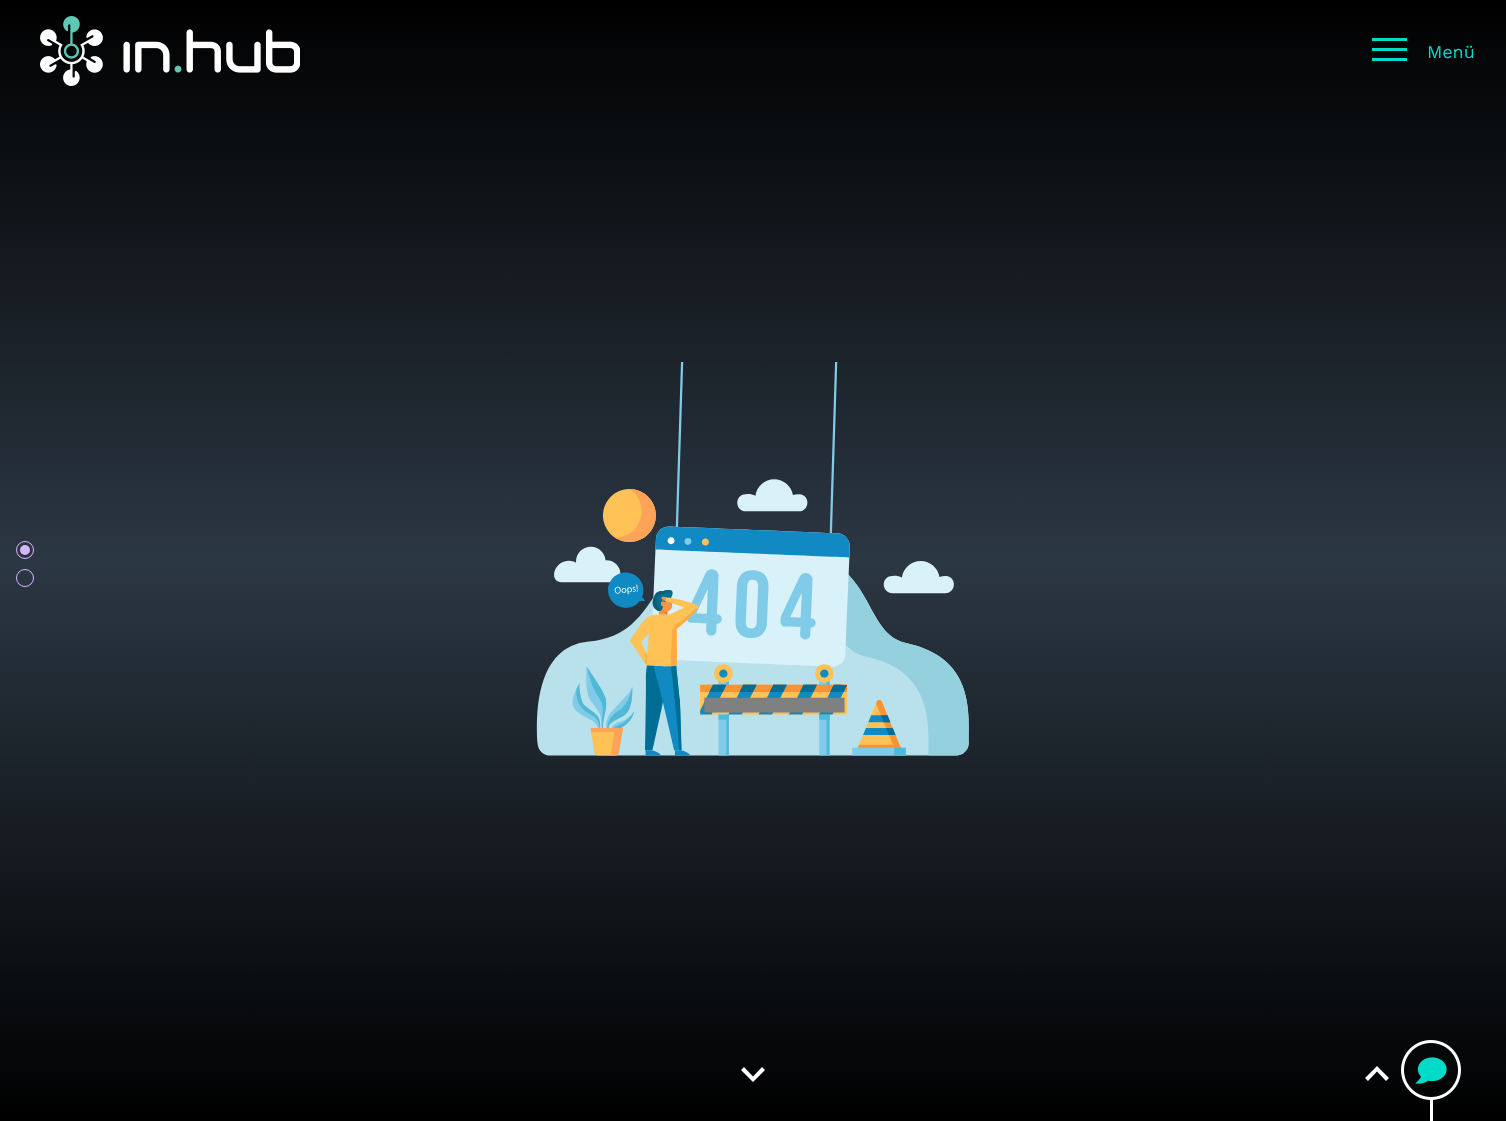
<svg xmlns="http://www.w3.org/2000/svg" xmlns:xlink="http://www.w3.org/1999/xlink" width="1506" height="1121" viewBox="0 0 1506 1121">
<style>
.cls-1{font:18px Work Sans;fill:#00dbc9}
</style>
<defs>
<linearGradient id="g1" gradientUnits="userSpaceOnUse" x1="753" y1="0" x2="753" y2="1121"><stop offset="0" stop-color="#000000"/><stop offset="0.5" stop-color="#2b3743"/><stop offset="1" stop-color="#000000"/></linearGradient>
</defs>
<rect width="100%" height="100%" fill="#ffffff"/>
<rect fill="url(#g1)" x="0" y="0" width="1506" height="1121"/>
<image xlink:href="image0.png" x="536" y="362" width="433" height="394"/>
<image xlink:href="image1.png" x="40" y="16" width="260" height="70"/>
<rect fill="#00dbc9" x="1372" y="38" width="35" height="3"/>
<rect fill="#00dbc9" x="1372" y="48" width="35" height="3"/>
<rect fill="#00dbc9" x="1372" y="58" width="35" height="3"/>
<circle fill="#d8b6fa" cx="25" cy="550" r="5"/>
<circle fill="none" stroke="#d8b6fa" cx="25" cy="550" r="8.5"/>
<circle fill="none" stroke="#d8b6fa" cx="25" cy="578" r="8.5"/>
<path fill="#ffffff" d="M744 1067L753 1076.5L762 1067L765 1070L753 1082L741 1070Z"/>
<path fill="#ffffff" d="M1368 1081L1365 1078L1377 1066L1389 1078L1386 1081L1377 1071.5Z"/>
<image xlink:href="image2.png" x="1401" y="1040" width="60" height="81"/>
<text class="cls-1" x="1427" y="58">Menü</text>
</svg>
